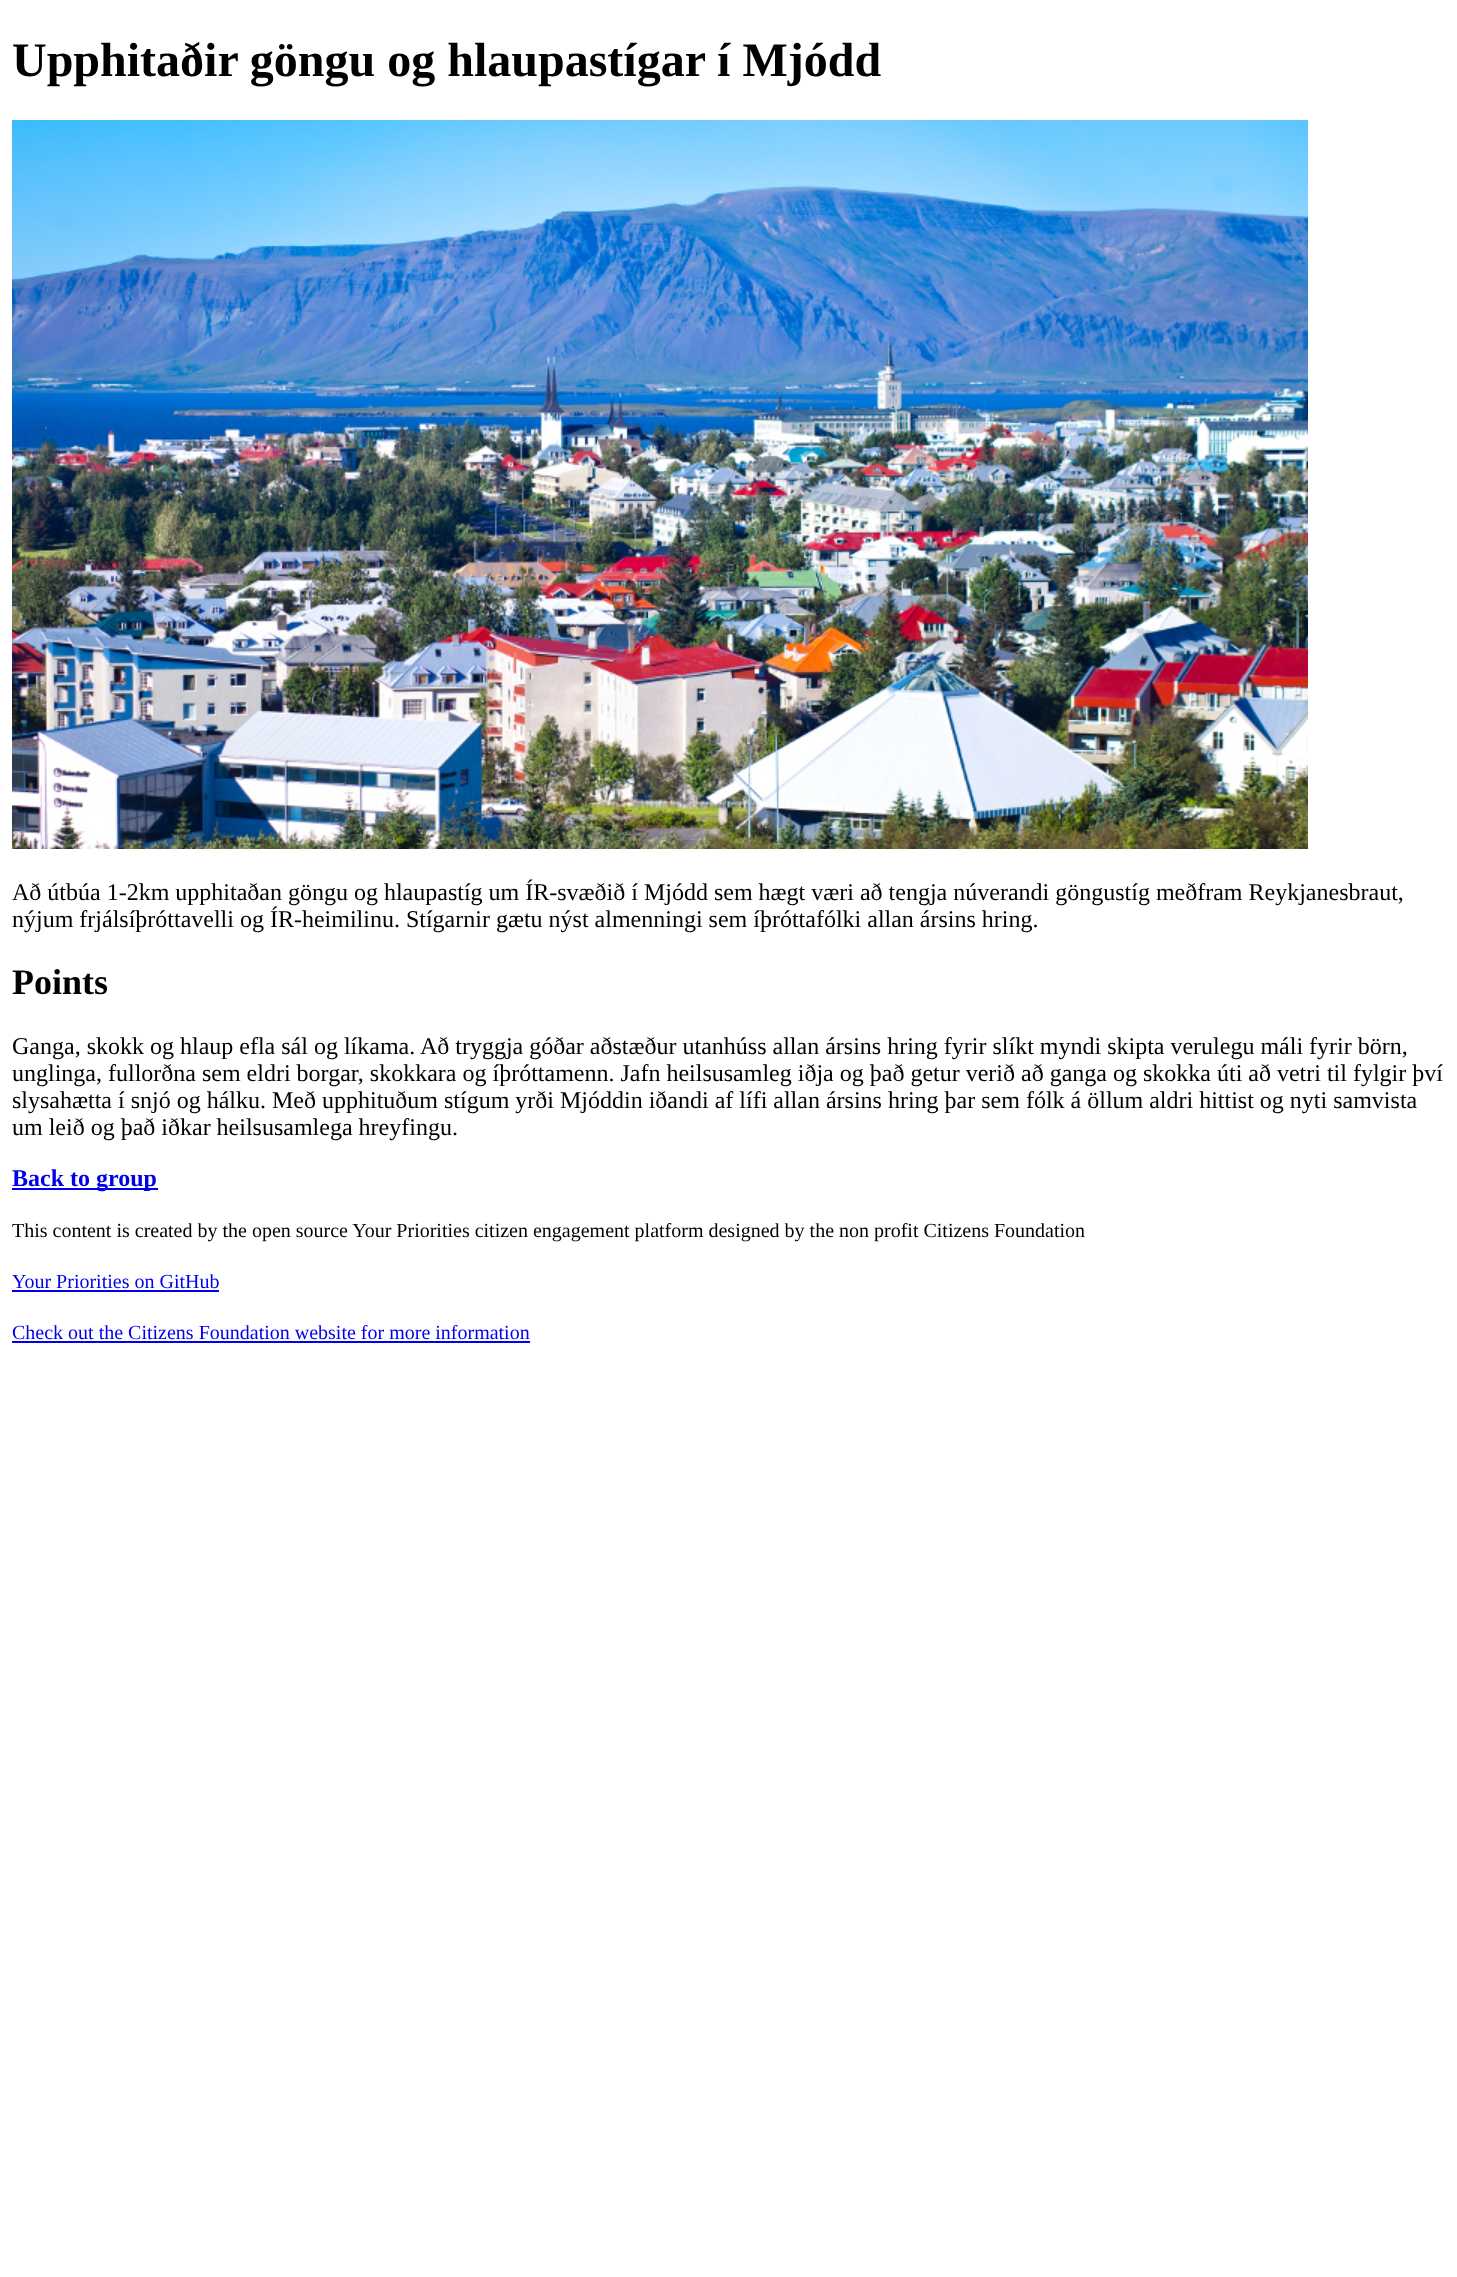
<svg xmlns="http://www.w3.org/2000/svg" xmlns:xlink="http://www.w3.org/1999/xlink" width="1457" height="2277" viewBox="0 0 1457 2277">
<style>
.cls-1{font:bold 48px Liberation Serif;fill:#000000}
.cls-2{font:24px Liberation Serif;fill:#000000}
.cls-3{font:bold 36px Liberation Serif;fill:#000000}
.cls-4{font:bold 24px Liberation Serif;fill:#0000ee}
.cls-5{font:20px Liberation Serif;fill:#000000}
.cls-6{font:20px Liberation Serif;fill:#0000ee}
</style>
<rect width="100%" height="100%" fill="#ffffff"/>
<image xlink:href="image0.png" x="12" y="120" width="1296" height="729"/>
<rect fill="#0000ee" x="12" y="1188" width="146" height="2"/>
<rect fill="#0000ee" x="12" y="1290" width="207" height="2"/>
<rect fill="#0000ee" x="12" y="1341" width="518" height="2"/>
<text class="cls-1" x="12" y="76">Upphitaðir göngu og hlaupastígar í Mjódd</text>
<text class="cls-2"><tspan x="12" y="900">Að útbúa 1-2km upphitaðan göngu og hlaupastíg um ÍR-svæðið í Mjódd sem hægt væri að tengja núverandi göngustíg meðfram Reykjanesbraut,</tspan><tspan x="12" y="927">nýjum frjálsíþróttavelli og ÍR-heimilinu. Stígarnir gætu nýst almenningi sem íþróttafólki allan ársins hring.</tspan></text>
<text class="cls-3" x="12" y="994">Points</text>
<text class="cls-2"><tspan x="12" y="1054">Ganga, skokk og hlaup efla sál og líkama. Að tryggja góðar aðstæður utanhúss allan ársins hring fyrir slíkt myndi skipta verulegu máli fyrir börn,</tspan><tspan x="12" y="1081">unglinga, fullorðna sem eldri borgar, skokkara og íþróttamenn. Jafn heilsusamleg iðja og það getur verið að ganga og skokka úti að vetri til fylgir því</tspan><tspan x="12" y="1108">slysahætta í snjó og hálku. Með upphituðum stígum yrði Mjóddin iðandi af lífi allan ársins hring þar sem fólk á öllum aldri hittist og nyti samvista</tspan><tspan x="12" y="1135">um leið og það iðkar heilsusamlega hreyfingu.</tspan></text>
<text class="cls-4" x="12" y="1186">Back to group</text>
<text class="cls-5" x="12" y="1237">This content is created by the open source Your Priorities citizen engagement platform designed by the non profit Citizens Foundation</text>
<text class="cls-6" x="12" y="1288">Your Priorities on GitHub</text>
<text class="cls-6" x="12" y="1339">Check out the Citizens Foundation website for more information</text>
</svg>
